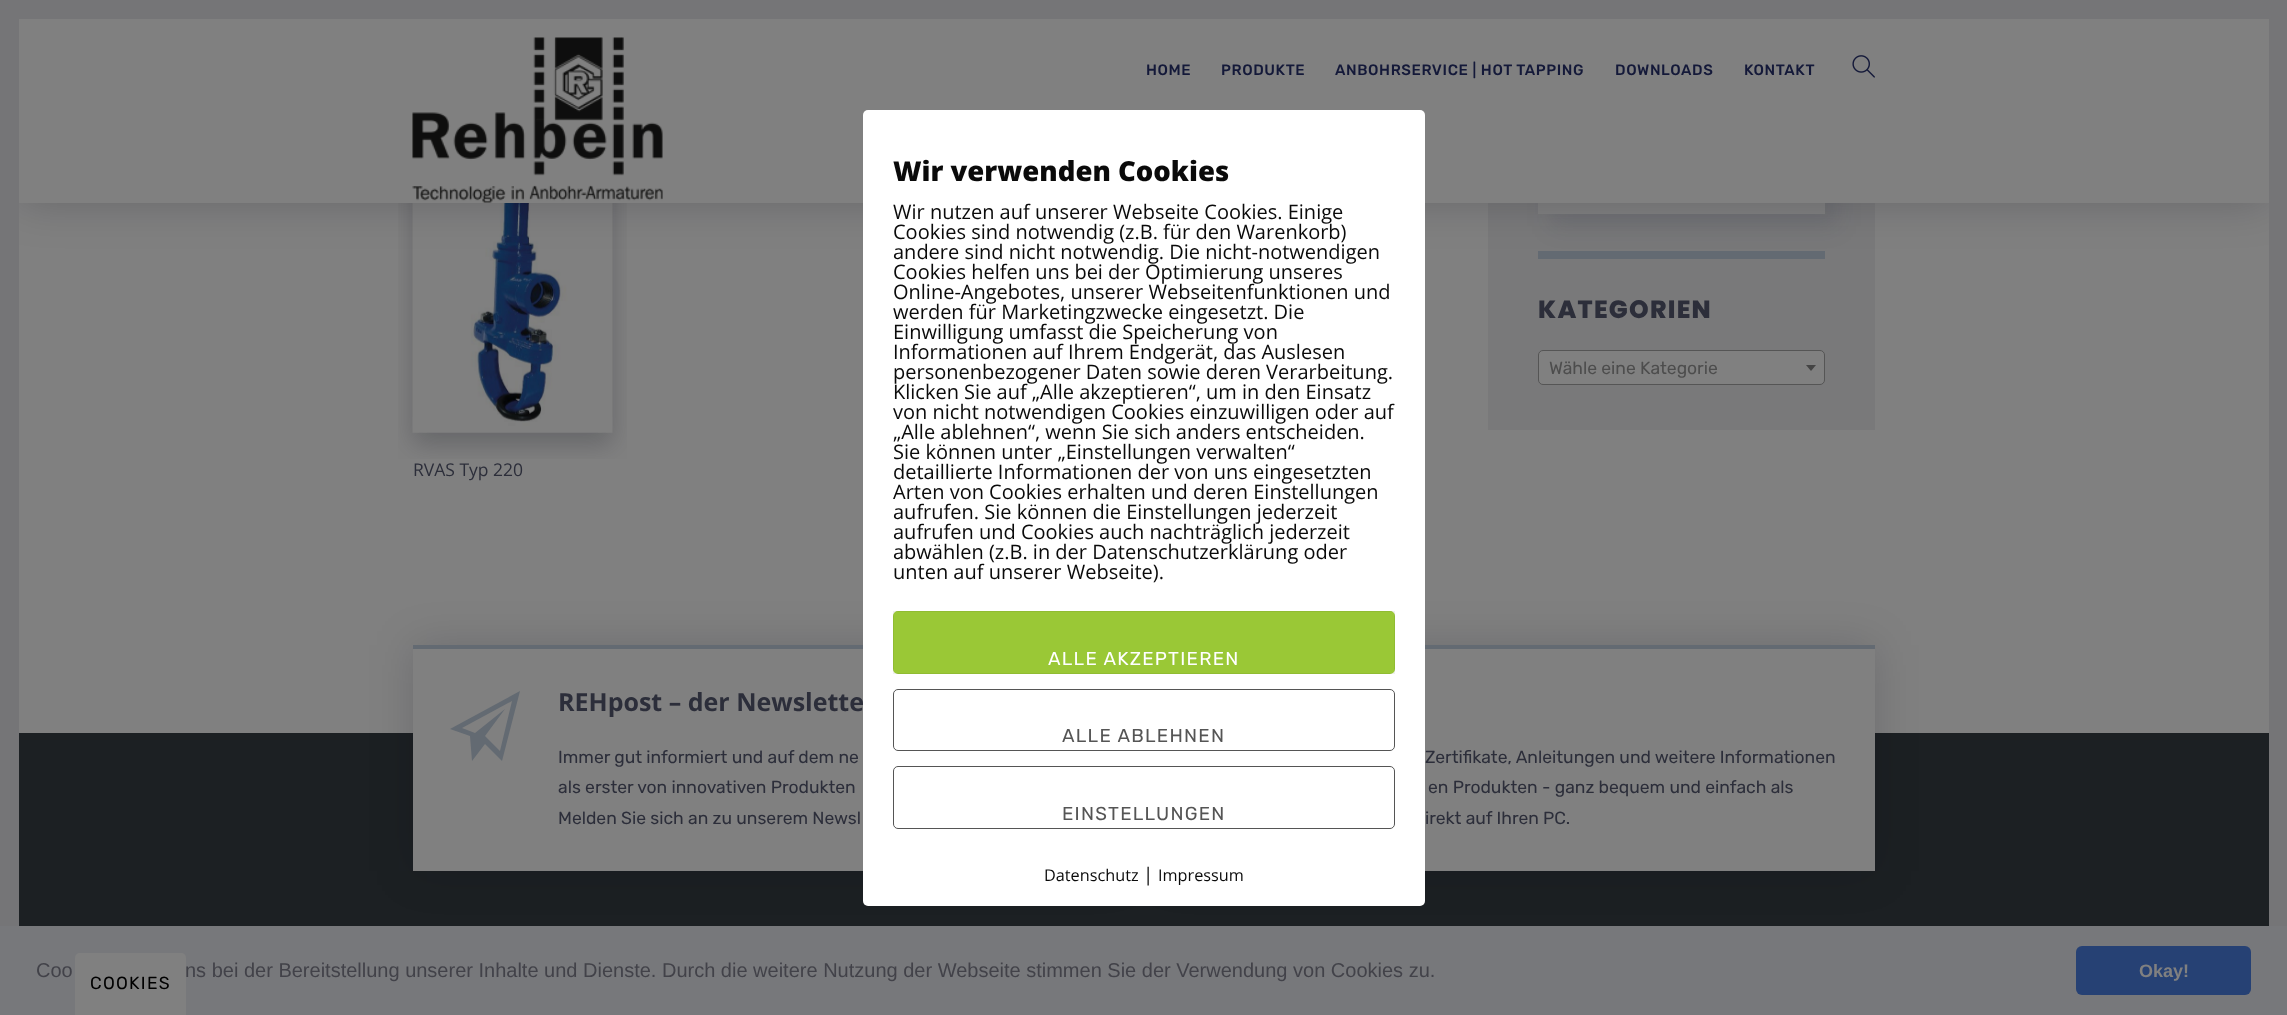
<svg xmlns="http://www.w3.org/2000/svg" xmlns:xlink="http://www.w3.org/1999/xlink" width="2287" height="1015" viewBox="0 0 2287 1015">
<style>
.cls-1{font:500 15px Rubik;letter-spacing:0.6px;fill:#141939}
.cls-2{font:800 25px Poppins;letter-spacing:1.25px;fill:#2c2e3a}
.cls-3{font:17.5px Rubik;fill:#4d4d4d}
.cls-4{font:17.5px Open Sans;fill:#2c2e3a}
.cls-5{font:bold 25px Open Sans;fill:#2c2e3a}
.cls-6{font:17.5px Rubik;fill:#2c2e3a}
.cls-7{font:800 27.5px Open Sans;fill:#0a0a0a}
.cls-8{font:20px Open Sans;fill:#0a0a0a}
.cls-9{font:18.75px Rubik;letter-spacing:1.25px;fill:#ffffff}
.cls-10{font:18.75px Rubik;letter-spacing:1.25px;fill:#555555}
.cls-11{font:16.25px Open Sans;fill:#0a0a0a}
.cls-12{font:18.75px Open Sans;fill:#0a0a0a}
.cls-13{font:20px Liberation Sans;fill:#424249}
.cls-14{font:bold 18px Liberation Sans;fill:#808080}
.cls-15{font:17.5px Rubik;letter-spacing:1.25px;fill:#000000}
</style>
<rect width="100%" height="100%" fill="#808080"/>
<rect fill="#79797a" x="1488" y="203" width="387" height="227"/>
<rect fill="#636a72" x="1538" y="251" width="287" height="8"/>
<rect fill="#141939" fill-opacity="0.1" filter="blur(12.5px)" x="1550" y="164" width="288" height="62"/>
<rect fill="#808080" x="1538" y="203" width="287" height="11"/>
<image xlink:href="image2.png" x="398" y="203" width="229" height="256"/>
<rect fill="#010310" fill-opacity="0.2" filter="blur(22px)" x="19" y="19" width="2250" height="184"/>
<rect fill="#757577" x="0" y="0" width="19" height="926"/>
<rect fill="#757577" x="19" y="0" width="2250" height="19"/>
<rect fill="#757577" x="2269" y="0" width="18" height="926"/>
<rect fill="#808080" x="19" y="19" width="2250" height="184"/>
<image xlink:href="image0.png" x="412" y="37" width="251" height="166"/>
<image xlink:href="image1.png" x="1852" y="55" width="23" height="23"/>
<rect fill="#808080" stroke="#555555" x="1538.5" y="350.5" width="286" height="34" rx="4.5"/>
<path fill="#444444" d="M1806 365H1816L1811 371Z"/>
<rect fill="#1c2023" x="19" y="733" width="2250" height="193"/>
<rect fill="#010310" fill-opacity="0.15" filter="blur(22px)" x="413" y="645" width="712" height="226"/>
<rect fill="#808080" x="413" y="649" width="450" height="222"/>
<rect fill="#636a72" x="413" y="645" width="450" height="4"/>
<path fill="#636a72" d="M450 729L520 691L502 761L485 744L472 761L470 736ZM500 751L512 701L462 728L475 733L505 709L485 736Z"/>
<rect fill="#010310" fill-opacity="0.15" filter="blur(22px)" x="1163" y="645" width="712" height="226"/>
<rect fill="#808080" x="1425" y="649" width="450" height="222"/>
<rect fill="#636a72" x="1425" y="645" width="450" height="4"/>
<rect fill="#ffffff" x="863" y="110" width="562" height="796" rx="5"/>
<rect fill="#9ac836" x="893" y="611" width="502" height="63" rx="5"/>
<rect fill="none" stroke="#000000" stroke-opacity="0.06" x="893.5" y="611.5" width="501" height="62"/>
<rect fill="none" stroke="#555555" x="893.5" y="689.5" width="501" height="61" rx="4.5"/>
<rect fill="none" stroke="#555555" x="893.5" y="766.5" width="501" height="62" rx="4.5"/>
<rect fill="#77787b" x="0" y="926" width="2287" height="89"/>
<rect fill="#264174" x="2076" y="946" width="175" height="49" rx="6"/>
<path fill="#808080" d="M80 953H181C184 953 186 955 186 958V1015H75V958C75 955 77 953 80 953Z"/>
<text class="cls-1" x="1146" y="75">HOME</text>
<text class="cls-1" x="1221" y="75">PRODUKTE</text>
<text class="cls-1" x="1335" y="75">ANBOHRSERVICE | HOT TAPPING</text>
<text class="cls-1" x="1615" y="75">DOWNLOADS</text>
<text class="cls-1" x="1744" y="75">KONTAKT</text>
<text class="cls-2" x="1538" y="318">KATEGORIEN</text>
<text class="cls-3" x="1549" y="374">Wähle eine Kategorie</text>
<text class="cls-4" x="413" y="476">RVAS Typ 220</text>
<text class="cls-5" x="558" y="711">REHpost – der Newslette</text>
<text class="cls-6"><tspan x="558" y="763">Immer gut informiert und auf dem ne</tspan><tspan x="558" y="793">als erster von innovativen Produkten</tspan><tspan x="558" y="824">Melden Sie sich an zu unserem Newsl</tspan></text>
<text class="cls-6" x="1425" y="763">Zertifikate, Anleitungen und weitere Informationen</text>
<text class="cls-6" x="1428" y="793">en Produkten - ganz bequem und einfach als</text>
<text class="cls-6" x="1425" y="824">irekt auf Ihren PC.</text>
<text class="cls-7" x="893" y="181">Wir verwenden Cookies</text>
<text class="cls-8"><tspan x="893" y="219">Wir nutzen auf unserer Webseite Cookies. Einige</tspan><tspan x="893" y="239">Cookies sind notwendig (z.B. für den Warenkorb)</tspan><tspan x="893" y="259">andere sind nicht notwendig. Die nicht-notwendigen</tspan><tspan x="893" y="279">Cookies helfen uns bei der Optimierung unseres</tspan><tspan x="893" y="299">Online-Angebotes, unserer Webseitenfunktionen und</tspan><tspan x="893" y="319">werden für Marketingzwecke eingesetzt. Die</tspan><tspan x="893" y="339">Einwilligung umfasst die Speicherung von</tspan><tspan x="893" y="359">Informationen auf Ihrem Endgerät, das Auslesen</tspan><tspan x="893" y="379">personenbezogener Daten sowie deren Verarbeitung.</tspan><tspan x="893" y="399">Klicken Sie auf „Alle akzeptieren“, um in den Einsatz</tspan><tspan x="893" y="419">von nicht notwendigen Cookies einzuwilligen oder auf</tspan><tspan x="893" y="439">„Alle ablehnen“, wenn Sie sich anders entscheiden.</tspan><tspan x="893" y="459">Sie können unter „Einstellungen verwalten“</tspan><tspan x="893" y="479">detaillierte Informationen der von uns eingesetzten</tspan><tspan x="893" y="499">Arten von Cookies erhalten und deren Einstellungen</tspan><tspan x="893" y="519">aufrufen. Sie können die Einstellungen jederzeit</tspan><tspan x="893" y="539">aufrufen und Cookies auch nachträglich jederzeit</tspan><tspan x="893" y="559">abwählen (z.B. in der Datenschutzerklärung oder</tspan><tspan x="893" y="579">unten auf unserer Webseite).</tspan></text>
<text class="cls-9" x="1048" y="665">ALLE AKZEPTIEREN</text>
<text class="cls-10" x="1062" y="742">ALLE ABLEHNEN</text>
<text class="cls-10" x="1062" y="820">EINSTELLUNGEN</text>
<text class="cls-11" x="1044" y="881">Datenschutz</text>
<text class="cls-12" x="1143" y="881">|</text>
<text class="cls-11" x="1158" y="881">Impressum</text>
<text class="cls-13" x="36" y="977">Coo</text>
<text class="cls-13" x="185" y="977">ns bei der Bereitstellung unserer Inhalte und Dienste. Durch die weitere Nutzung der Webseite stimmen Sie der Verwendung von Cookies zu.</text>
<text class="cls-14" x="2139" y="977">Okay!</text>
<text class="cls-15" x="90" y="989">COOKIES</text>
</svg>
